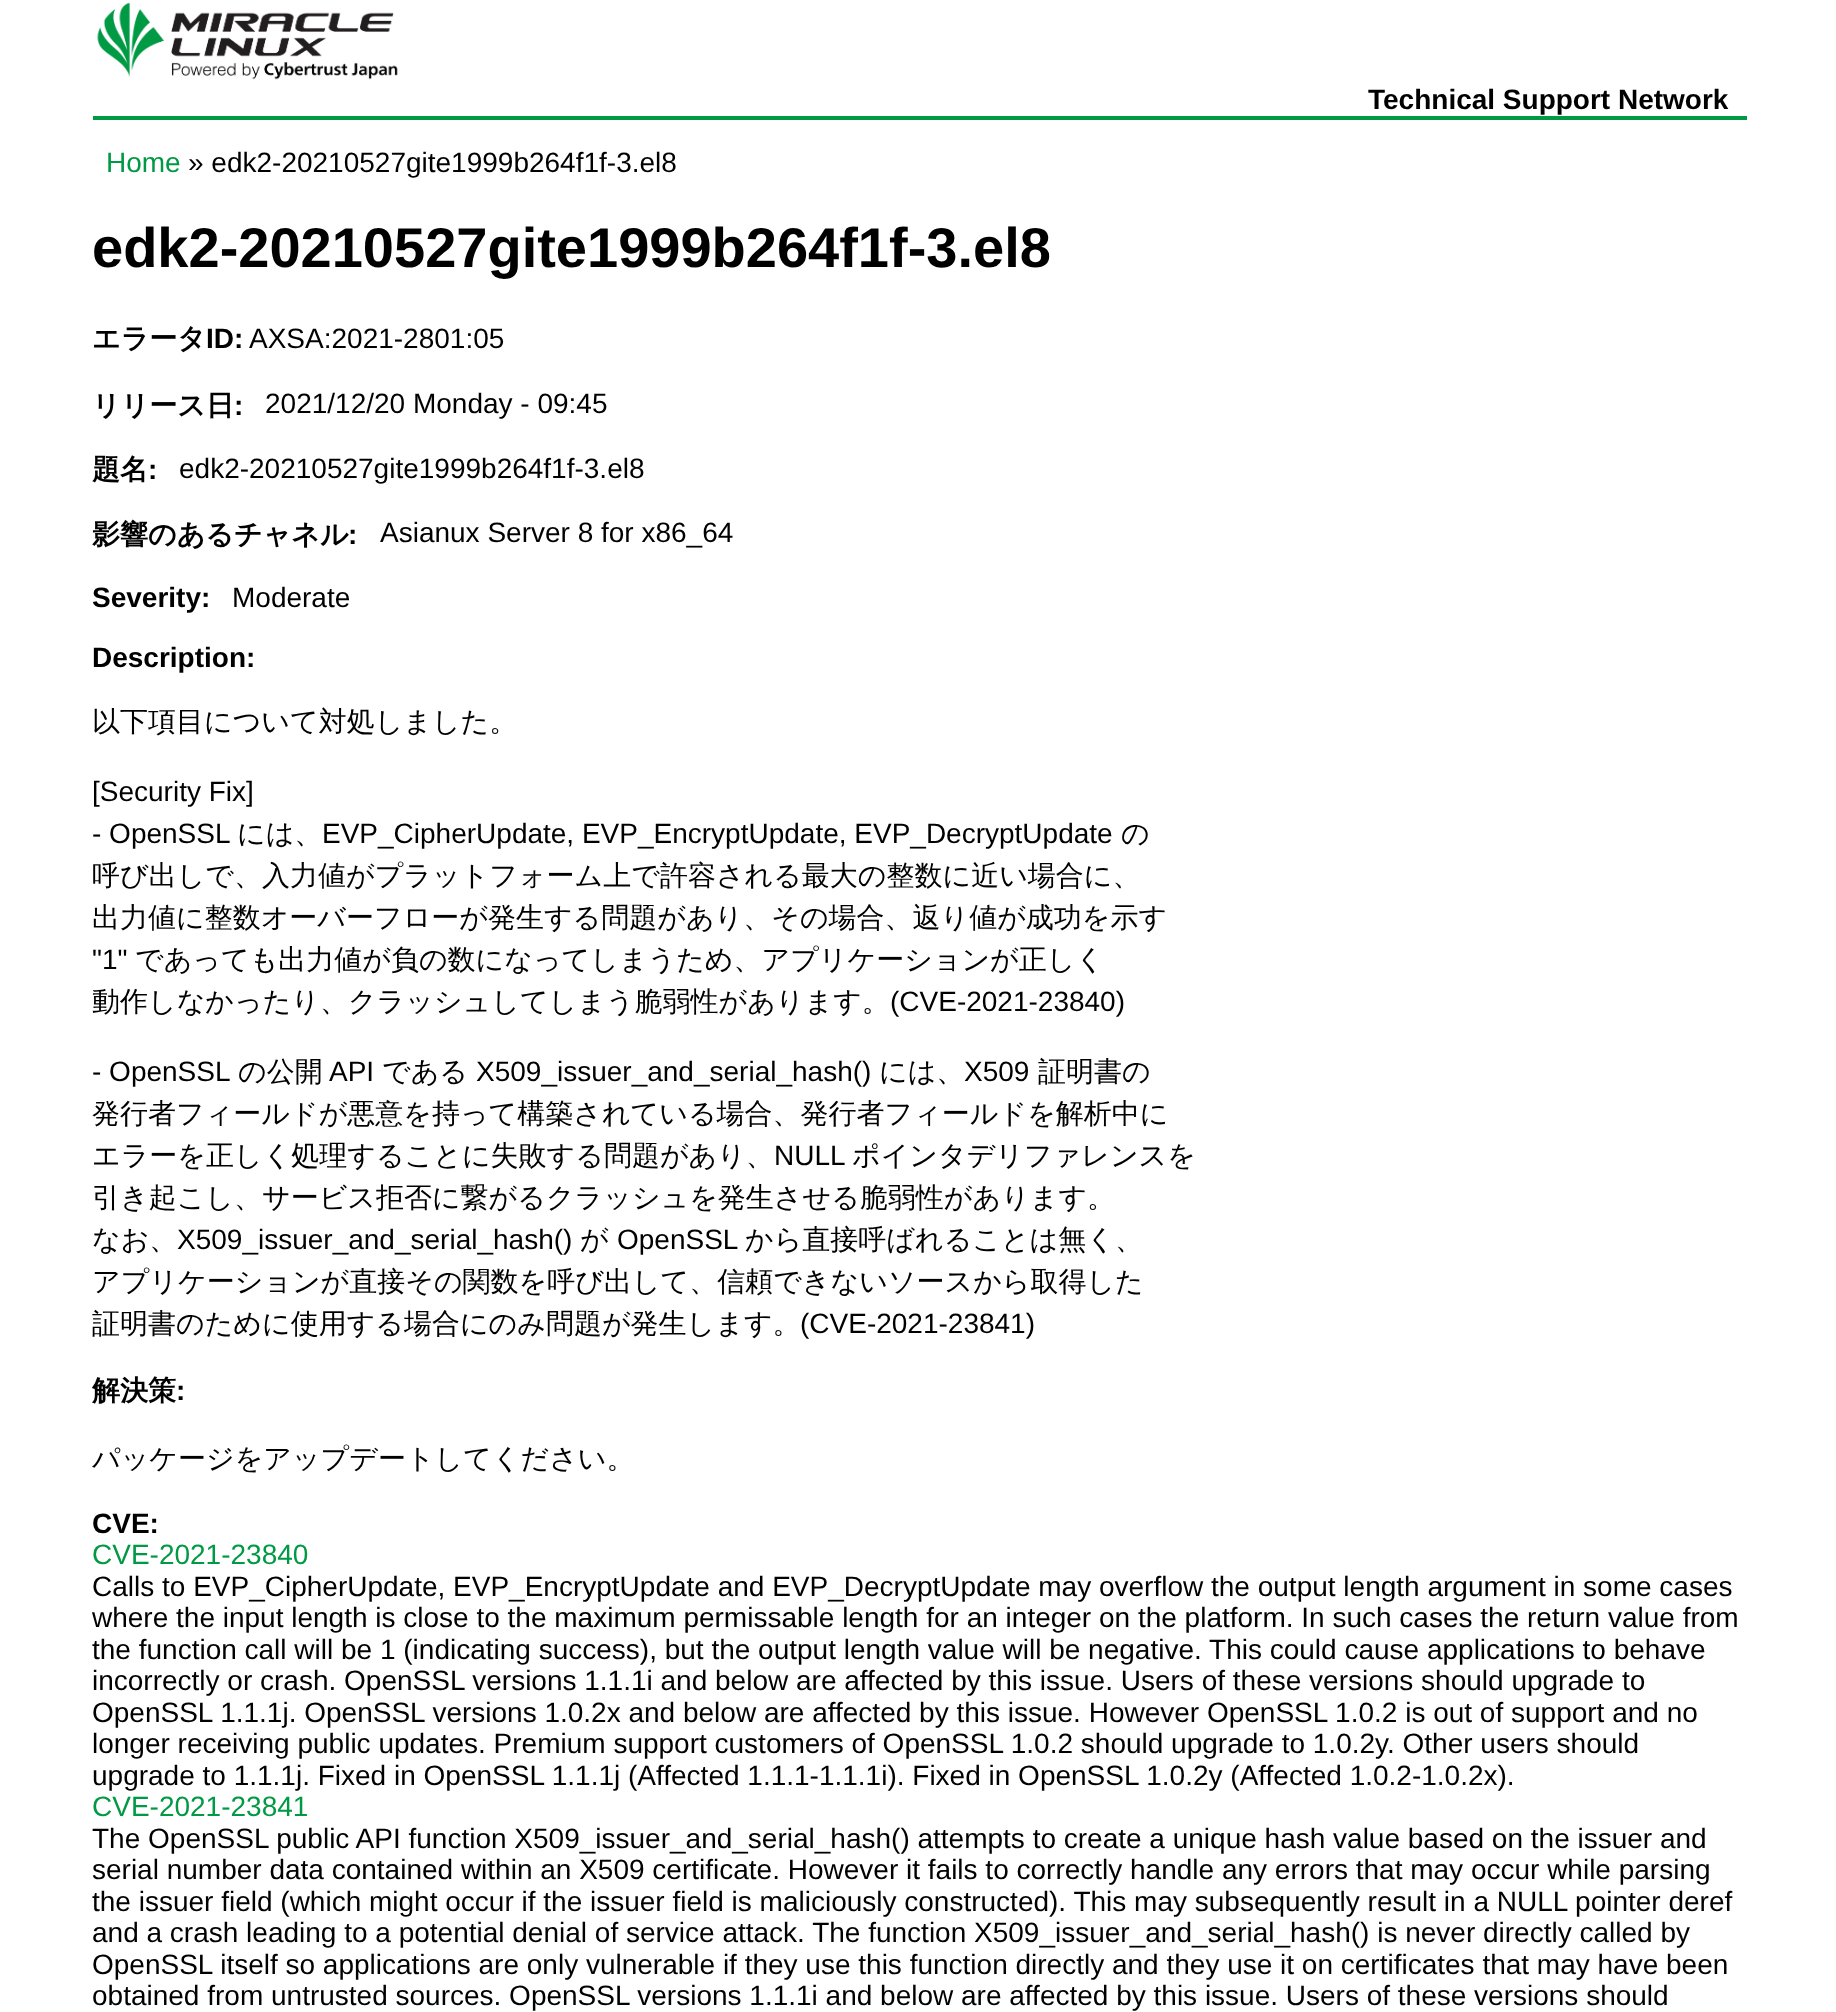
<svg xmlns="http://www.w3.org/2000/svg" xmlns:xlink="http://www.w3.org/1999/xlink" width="1836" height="2012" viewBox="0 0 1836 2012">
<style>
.cls-1{font:bold 28px Liberation Sans;fill:#000000}
.cls-2{font:28px Liberation Sans;fill:#009944}
.cls-3{font:28px Liberation Sans;fill:#000000}
.cls-4{font:bold 56px Liberation Sans;fill:#000000}
.cls-5{font:bold 28px WenQuanYi Zen Hei;fill:#000000}
.cls-6{font:500 28px WenQuanYi Zen Hei;fill:#000000}
</style>
<rect width="100%" height="100%" fill="#ffffff"/>
<rect fill="#009944" x="93" y="116" width="1654" height="4"/>
<image xlink:href="image0.png" x="97" y="2" width="301" height="78"/>
<text class="cls-1" x="1368" y="109">Technical Support Network</text>
<text class="cls-2" x="106" y="172">Home</text>
<text class="cls-3" x="188" y="172">» edk2-20210527gite1999b264f1f-3.el8</text>
<text class="cls-4" x="92" y="267">edk2-20210527gite1999b264f1f-3.el8</text>
<text class="cls-5" x="92" y="348">エラータ</text>
<text class="cls-1" x="206" y="348">ID:</text>
<text class="cls-3" x="249" y="348">AXSA:2021-2801:05</text>
<text class="cls-5" x="92" y="415">リリース日</text>
<text class="cls-1" x="234" y="415">:</text>
<text class="cls-3" x="265" y="413">2021/12/20 Monday - 09:45</text>
<text class="cls-5" x="92" y="479">題名</text>
<text class="cls-1" x="148" y="479">:</text>
<text class="cls-3" x="179" y="478">edk2-20210527gite1999b264f1f-3.el8</text>
<text class="cls-5" x="92" y="544">影響のあるチャネル</text>
<text class="cls-1" x="348" y="544">:</text>
<text class="cls-3" x="380" y="542">Asianux Server 8 for x86_64</text>
<text class="cls-1" x="92" y="607">Severity:</text>
<text class="cls-3" x="232" y="607">Moderate</text>
<text class="cls-1" x="92" y="667">Description:</text>
<text class="cls-6" x="92" y="731">以下項目について対処しました。</text>
<text class="cls-3"><tspan x="92" y="801">[Security Fix]</tspan><tspan x="92" y="843">- OpenSSL</tspan></text>
<text class="cls-6" x="237" y="843">には、</text>
<text class="cls-3" x="322" y="843">EVP_CipherUpdate, EVP_EncryptUpdate, EVP_DecryptUpdate</text>
<text class="cls-6" x="1121" y="843">の</text>
<text class="cls-6"><tspan x="92" y="885">呼び出しで、入力値がプラットフォーム上で許容される最大の整数に近い場合に、</tspan><tspan x="92" y="927">出力値に整数オーバーフローが発生する問題があり、その場合、返り値が成功を示す</tspan></text>
<text class="cls-3" x="92" y="969">"1"</text>
<text class="cls-6" x="135" y="969">であっても出力値が負の数になってしまうため、アプリケーションが正しく</text>
<text class="cls-6" x="92" y="1011">動作しなかったり、クラッシュしてしまう脆弱性があります。</text>
<text class="cls-3" x="890" y="1011">(CVE-2021-23840)</text>
<text class="cls-3" x="92" y="1081">- OpenSSL</text>
<text class="cls-6" x="238" y="1081">の公開</text>
<text class="cls-3" x="329" y="1081">API</text>
<text class="cls-6" x="382" y="1081">である</text>
<text class="cls-3" x="476" y="1081">X509_issuer_and_serial_hash()</text>
<text class="cls-6" x="879" y="1081">には、</text>
<text class="cls-3" x="964" y="1081">X509</text>
<text class="cls-6" x="1038" y="1081">証明書の</text>
<text class="cls-6"><tspan x="92" y="1123">発行者フィールドが悪意を持って構築されている場合、発行者フィールドを解析中に</tspan><tspan x="92" y="1165">エラーを正しく処理することに失敗する問題があり、</tspan></text>
<text class="cls-3" x="774" y="1165">NULL</text>
<text class="cls-6" x="852" y="1165">ポインタデリファレンスを</text>
<text class="cls-6"><tspan x="92" y="1207">引き起こし、サービス拒否に繋がるクラッシュを発生させる脆弱性があります。</tspan><tspan x="92" y="1249">なお、</tspan></text>
<text class="cls-3" x="177" y="1249">X509_issuer_and_serial_hash()</text>
<text class="cls-6" x="580" y="1249">が</text>
<text class="cls-3" x="617" y="1249">OpenSSL</text>
<text class="cls-6" x="745" y="1249">から直接呼ばれることは無く、</text>
<text class="cls-6"><tspan x="92" y="1291">アプリケーションが直接その関数を呼び出して、信頼できないソースから取得した</tspan><tspan x="92" y="1333">証明書のために使用する場合にのみ問題が発生します。</tspan></text>
<text class="cls-3" x="800" y="1333">(CVE-2021-23841)</text>
<text class="cls-5" x="92" y="1400">解決策</text>
<text class="cls-1" x="176" y="1400">:</text>
<text class="cls-6" x="92" y="1468">パッケージをアップデートしてください。</text>
<text class="cls-1" x="92" y="1533">CVE:</text>
<text class="cls-2" x="92" y="1564">CVE-2021-23840</text>
<text class="cls-3"><tspan x="92" y="1596">Calls to EVP_CipherUpdate, EVP_EncryptUpdate and EVP_DecryptUpdate may overflow the output length argument in some cases</tspan><tspan x="92" y="1627">where the input length is close to the maximum permissable length for an integer on the platform. In such cases the return value from</tspan><tspan x="92" y="1659">the function call will be 1 (indicating success), but the output length value will be negative. This could cause applications to behave</tspan><tspan x="92" y="1690">incorrectly or crash. OpenSSL versions 1.1.1i and below are affected by this issue. Users of these versions should upgrade to</tspan><tspan x="92" y="1722">OpenSSL 1.1.1j. OpenSSL versions 1.0.2x and below are affected by this issue. However OpenSSL 1.0.2 is out of support and no</tspan><tspan x="92" y="1753">longer receiving public updates. Premium support customers of OpenSSL 1.0.2 should upgrade to 1.0.2y. Other users should</tspan><tspan x="92" y="1785">upgrade to 1.1.1j. Fixed in OpenSSL 1.1.1j (Affected 1.1.1-1.1.1i). Fixed in OpenSSL 1.0.2y (Affected 1.0.2-1.0.2x).</tspan></text>
<text class="cls-2" x="92" y="1816">CVE-2021-23841</text>
<text class="cls-3"><tspan x="92" y="1848">The OpenSSL public API function X509_issuer_and_serial_hash() attempts to create a unique hash value based on the issuer and</tspan><tspan x="92" y="1879">serial number data contained within an X509 certificate. However it fails to correctly handle any errors that may occur while parsing</tspan><tspan x="92" y="1911">the issuer field (which might occur if the issuer field is maliciously constructed). This may subsequently result in a NULL pointer deref</tspan><tspan x="92" y="1942">and a crash leading to a potential denial of service attack. The function X509_issuer_and_serial_hash() is never directly called by</tspan><tspan x="92" y="1974">OpenSSL itself so applications are only vulnerable if they use this function directly and they use it on certificates that may have been</tspan><tspan x="92" y="2005">obtained from untrusted sources. OpenSSL versions 1.1.1i and below are affected by this issue. Users of these versions should</tspan></text>
</svg>
